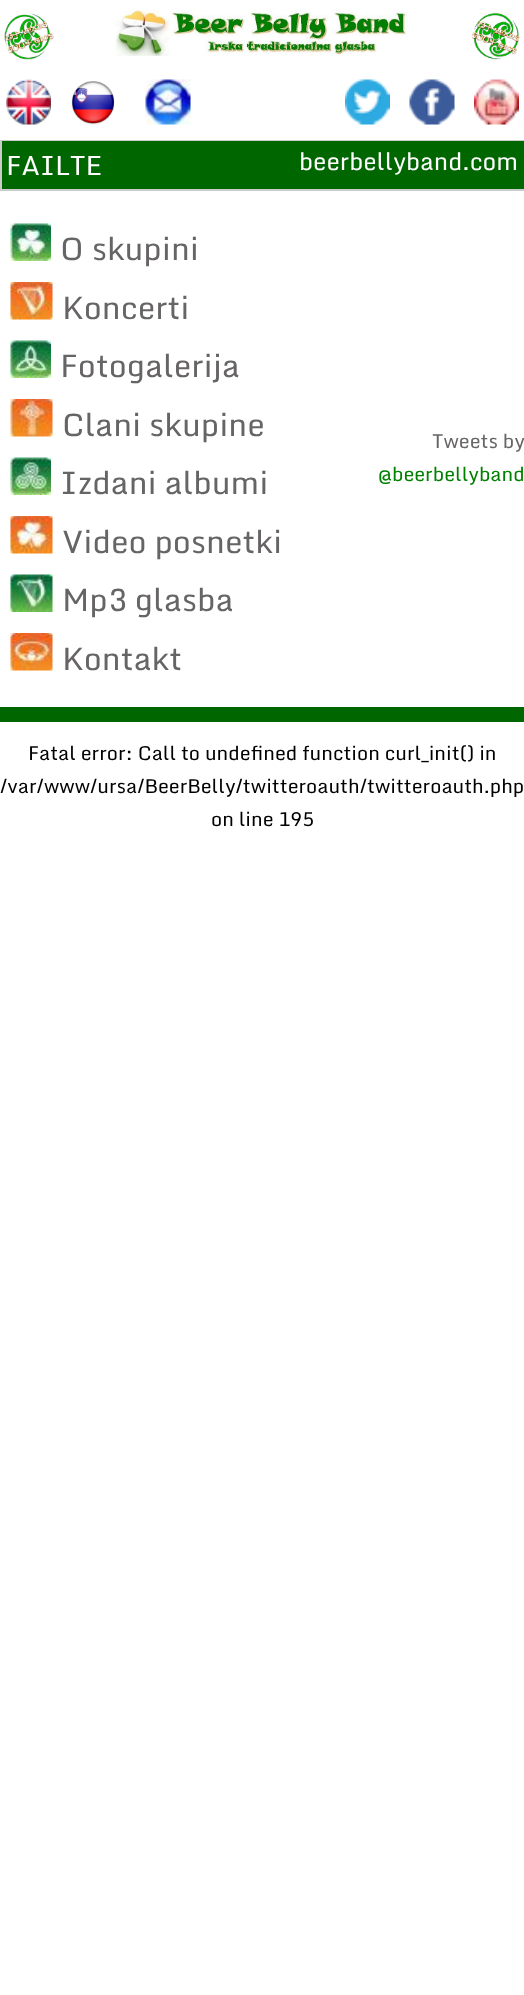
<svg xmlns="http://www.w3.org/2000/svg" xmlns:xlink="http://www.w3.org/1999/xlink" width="524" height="1995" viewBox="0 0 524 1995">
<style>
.cls-1{font:27px Monda;fill:#ffffff}
.cls-2{font:24px Monda;fill:#ffffff}
.cls-3{font:31.5px Monda;fill:#666464}
.cls-4{font:19.5px Monda;fill:#666464}
.cls-5{font:19.5px Monda;fill:#008000}
.cls-6{font:19.5px Monda;fill:#000000}
</style>
<rect width="100%" height="100%" fill="#ffffff"/>
<image xlink:href="image0.png" x="4" y="13" width="50" height="47"/>
<image xlink:href="image1.png" x="114" y="9" width="294" height="48"/>
<image xlink:href="image2.png" x="471" y="12" width="49" height="48"/>
<image xlink:href="image3.png" x="6" y="79" width="45" height="46"/>
<image xlink:href="image4.png" x="71" y="81" width="44" height="44"/>
<image xlink:href="image5.png" x="145" y="79" width="46" height="46"/>
<image xlink:href="image6.png" x="345" y="79" width="45" height="46"/>
<image xlink:href="image7.png" x="409" y="79" width="46" height="46"/>
<image xlink:href="image8.png" x="474" y="79" width="45" height="46"/>
<rect fill="none" stroke="#cccccc" stroke-width="2" x="1" y="141" width="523" height="49"/>
<rect fill="#006600" x="2" y="141" width="522" height="48"/>
<image xlink:href="image9.png" x="10" y="223" width="41" height="38"/>
<image xlink:href="image10.png" x="10" y="282" width="43" height="38"/>
<image xlink:href="image11.png" x="10" y="340" width="41" height="38"/>
<image xlink:href="image12.png" x="10" y="399" width="43" height="38"/>
<image xlink:href="image13.png" x="10" y="457" width="41" height="38"/>
<image xlink:href="image14.png" x="10" y="516" width="43" height="38"/>
<image xlink:href="image15.png" x="10" y="574" width="43" height="38"/>
<image xlink:href="image16.png" x="10" y="633" width="43" height="38"/>
<rect fill="#006600" x="0" y="707" width="524" height="15"/>
<text class="cls-1" x="6" y="175">FAILTE</text>
<text class="cls-2" x="299" y="170">beerbellyband.com</text>
<text class="cls-3" x="60" y="260">O skupini</text>
<text class="cls-3" x="62" y="319">Koncerti</text>
<text class="cls-3" x="60" y="377">Fotogalerija</text>
<text class="cls-3" x="62" y="436">Clani skupine</text>
<text class="cls-3" x="60" y="494">Izdani albumi</text>
<text class="cls-3"><tspan x="62" y="553">Video posnetki</tspan><tspan x="62" y="611">Mp3 glasba</tspan><tspan x="62" y="670">Kontakt</tspan></text>
<text class="cls-4" x="432" y="448">Tweets by</text>
<text class="cls-5" x="378" y="481">@beerbellyband</text>
<text class="cls-6" x="28" y="760">Fatal error: Call to undefined function curl_init() in</text>
<text class="cls-6" x="0" y="793">/var/www/ursa/BeerBelly/twitteroauth/twitteroauth.php</text>
<text class="cls-6" x="211" y="826">on line 195</text>
</svg>
